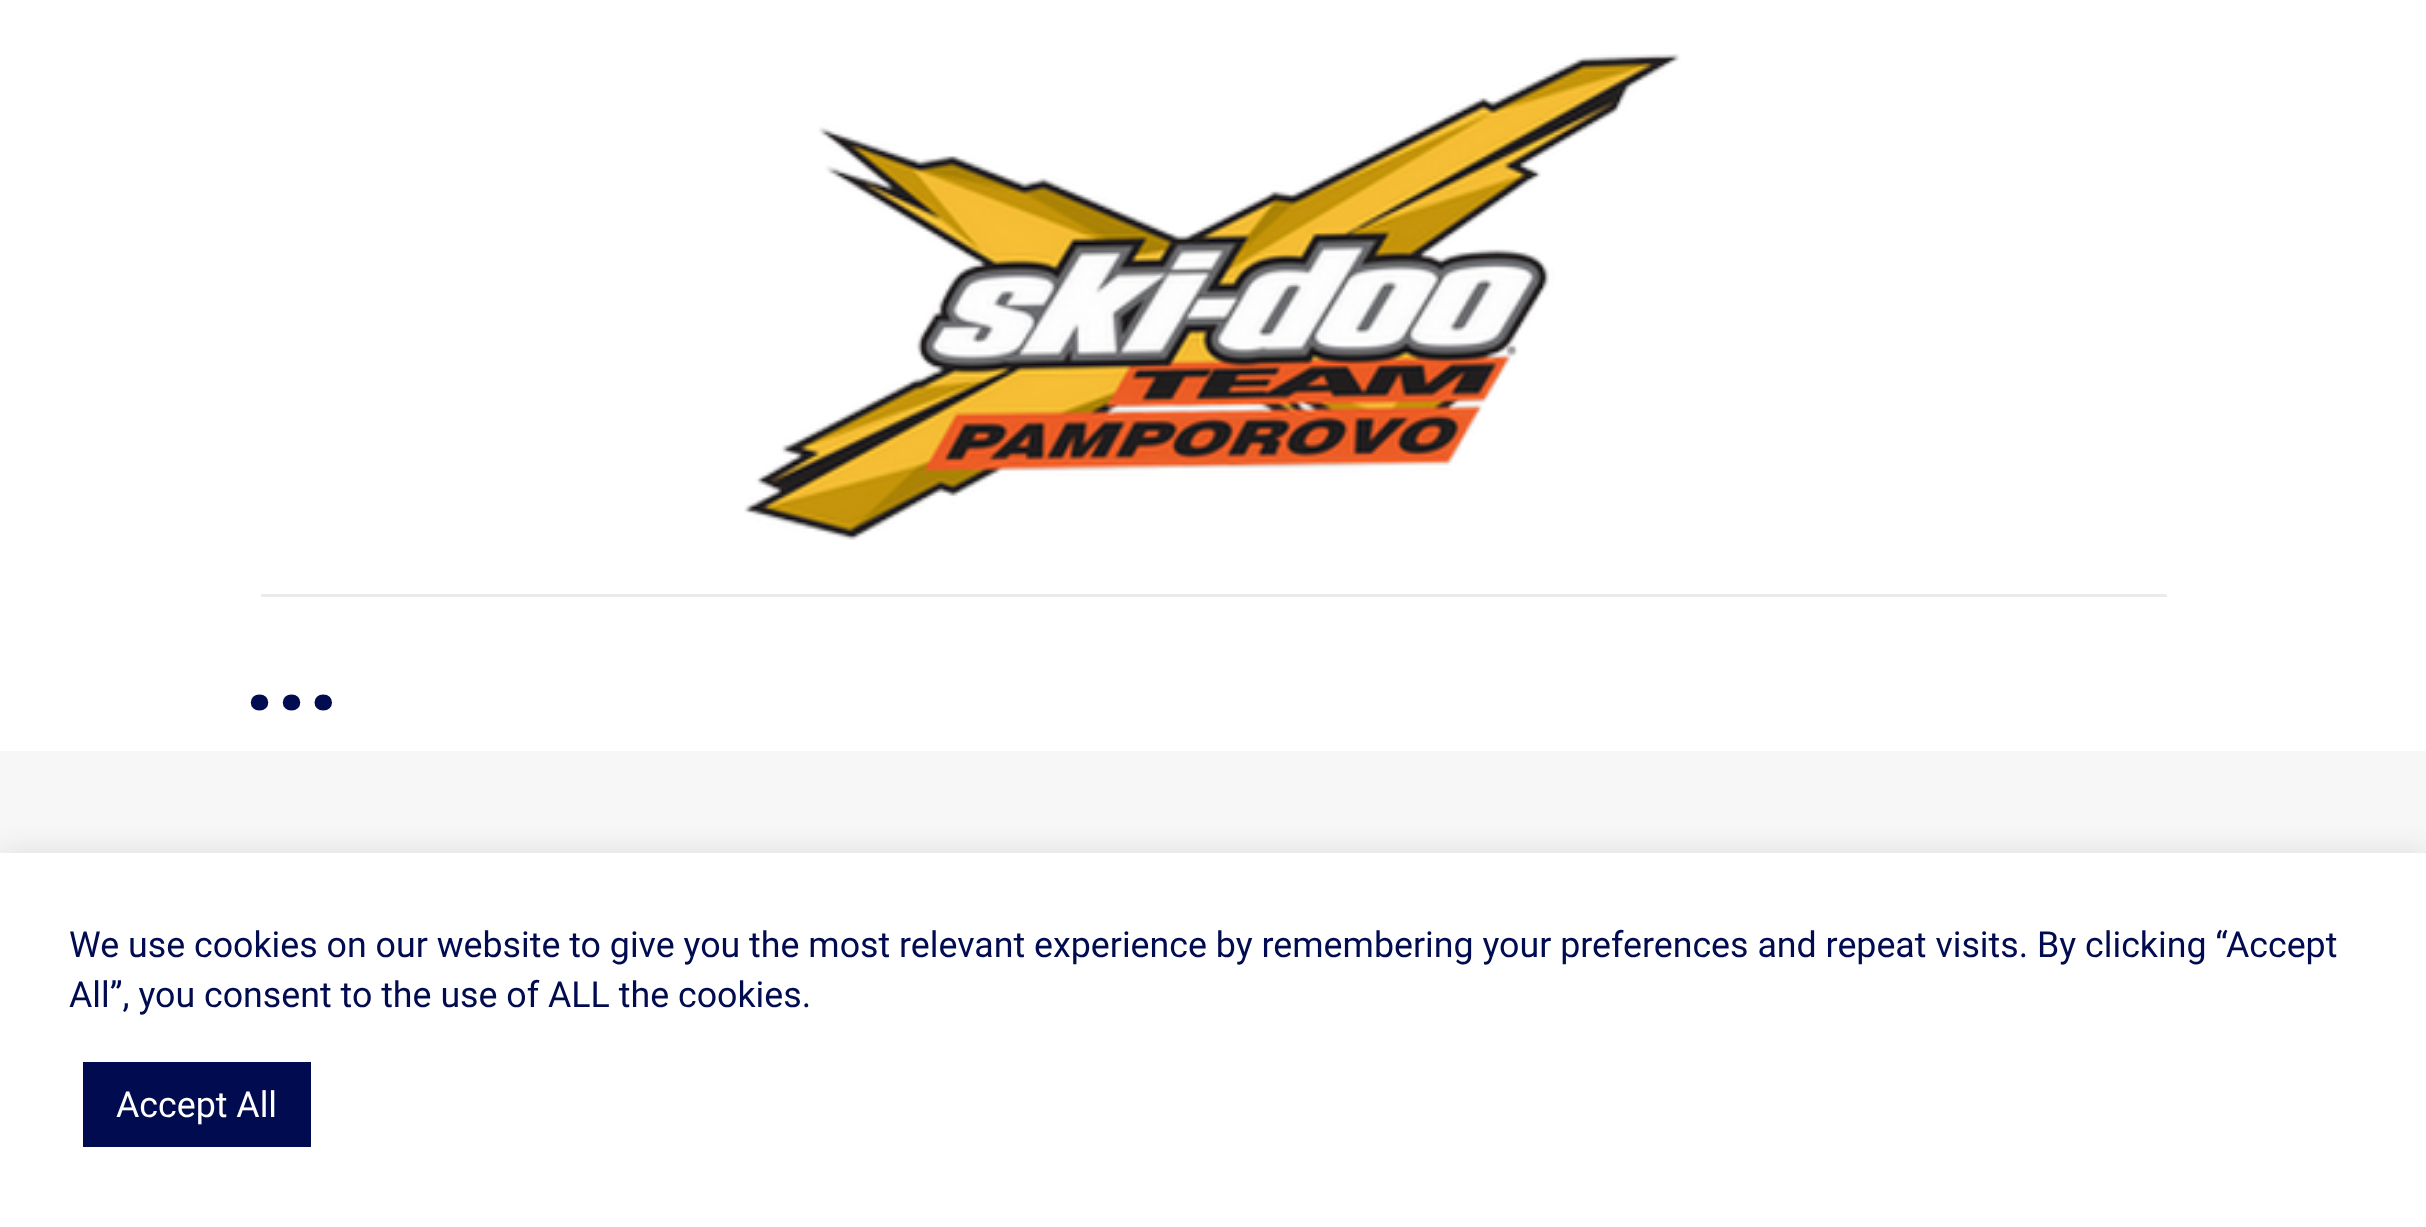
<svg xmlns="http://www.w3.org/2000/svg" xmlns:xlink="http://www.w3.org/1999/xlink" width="2426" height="1227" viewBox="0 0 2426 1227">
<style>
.cls-1{font:bold 110px Roboto;fill:#000b50}
.cls-2{font:35.75px Roboto;fill:#000b50}
.cls-3{font:35.75px Roboto;fill:#ffffff}
</style>
<rect width="100%" height="100%" fill="#ffffff"/>
<rect fill="#ebebeb" x="261" y="594" width="1906" height="3"/>
<image xlink:href="image0.png" x="744" y="53" width="937" height="487"/>
<rect fill="#f7f7f7" x="0" y="751" width="2426" height="102"/>
<rect fill="#acabab" fill-opacity="0.3" filter="blur(14px)" x="0" y="850" width="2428" height="377"/>
<rect fill="#ffffff" x="0" y="853" width="2426" height="374"/>
<rect fill="#000b50" x="83" y="1062" width="228" height="85"/>
<text class="cls-1" x="244" y="710">...</text>
<text class="cls-2"><tspan x="69" y="957">We use cookies on our website to give you the most relevant experience by remembering your preferences and repeat visits. By clicking “Accept</tspan><tspan x="69" y="1007">All”, you consent to the use of ALL the cookies.</tspan></text>
<text class="cls-3" x="116" y="1117">Accept All</text>
</svg>
